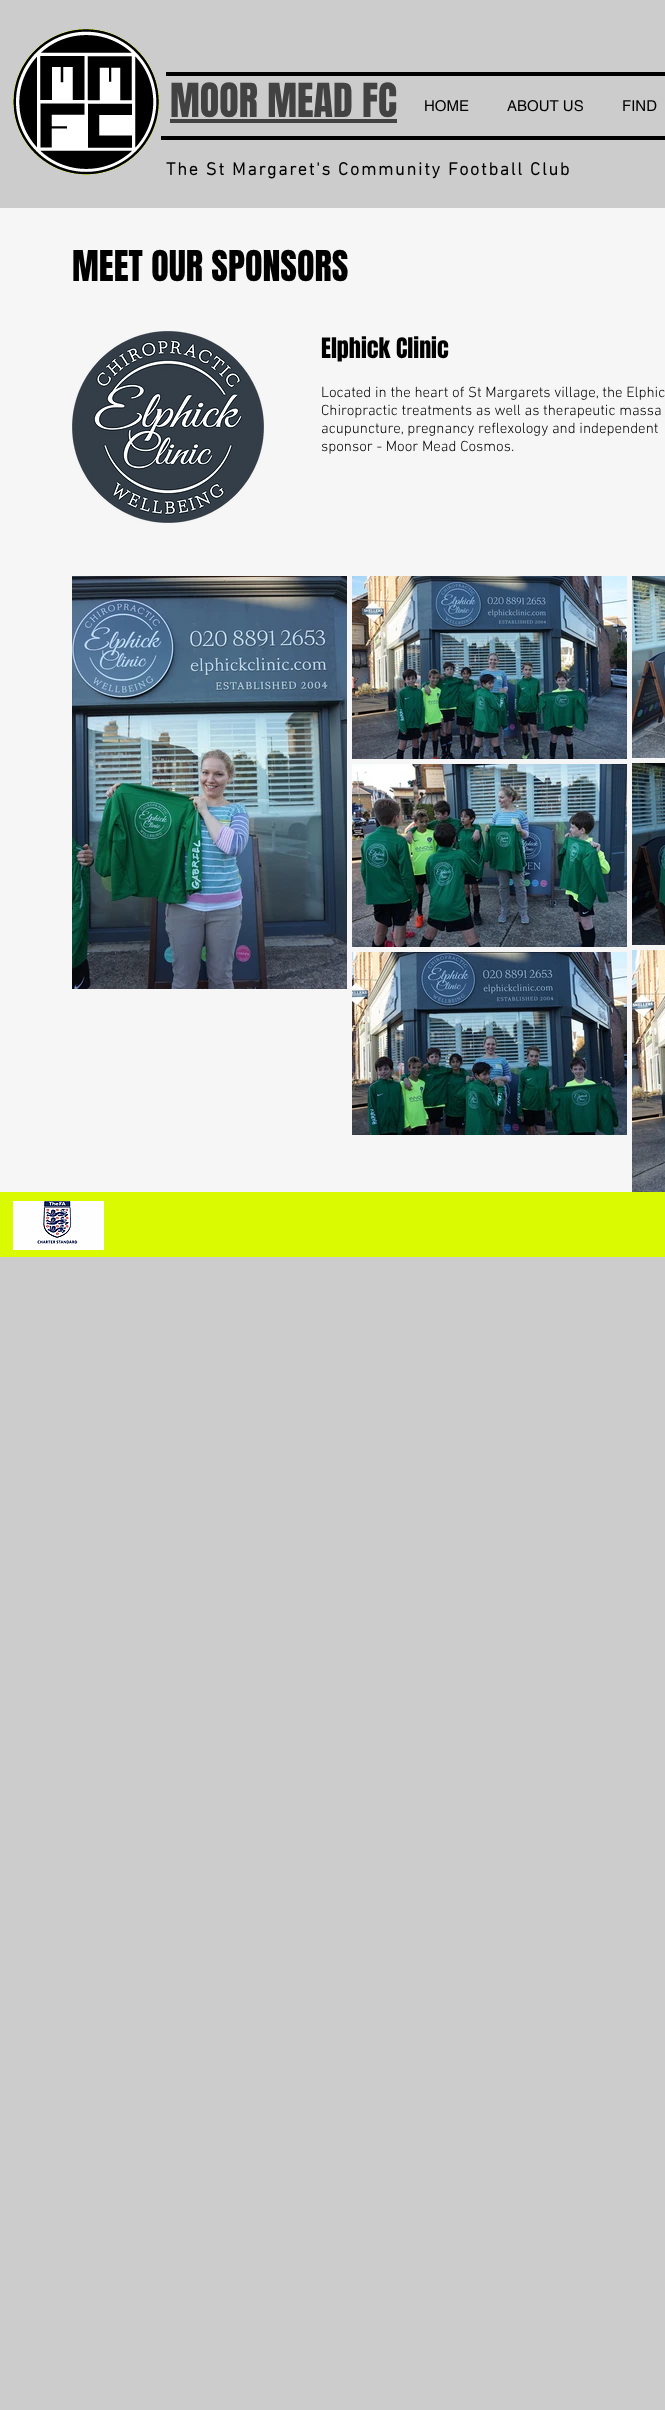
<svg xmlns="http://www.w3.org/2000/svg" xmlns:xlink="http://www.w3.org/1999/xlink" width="665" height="2410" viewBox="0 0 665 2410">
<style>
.cls-1{font:40px Anton;fill:#424242}
.cls-2{font:15px helvetica;fill:#000000}
.cls-3{font:bold 18px 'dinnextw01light';letter-spacing:1.8px;fill:#000000}
.cls-4{font:36px Anton;fill:#000000}
.cls-5{font:24px Anton;fill:#000000}
.cls-6{font:300 15px 'dinnextw01light';fill:#000000}
</style>
<rect width="100%" height="100%" fill="#cccccc"/>
<image xlink:href="image0.png" x="13" y="29" width="146" height="146"/>
<rect fill="#000000" x="166" y="72" width="499" height="4"/>
<rect fill="#424242" x="170" y="119" width="227" height="4"/>
<rect fill="#000000" x="161" y="136" width="504" height="4"/>
<rect fill="#f6f6f6" x="0" y="208" width="665" height="984"/>
<image xlink:href="image1.png" x="72" y="331" width="192" height="192"/>
<image xlink:href="image2.png" x="72" y="576" width="275" height="413"/>
<image xlink:href="image3.png" x="352" y="576" width="275" height="183"/>
<image xlink:href="image4.png" x="632" y="576" width="33" height="182"/>
<image xlink:href="image5.png" x="352" y="764" width="275" height="183"/>
<image xlink:href="image6.png" x="632" y="763" width="33" height="182"/>
<image xlink:href="image7.png" x="352" y="952" width="275" height="183"/>
<image xlink:href="image8.png" x="632" y="950" width="33" height="242"/>
<rect fill="#dafa02" x="0" y="1192" width="665" height="65"/>
<image xlink:href="image9.png" x="13" y="1201" width="91" height="49"/>
<text class="cls-1" x="170" y="117">MOOR MEAD FC</text>
<text class="cls-2" x="424" y="111">HOME</text>
<text class="cls-2" x="507" y="111">ABOUT US</text>
<text class="cls-2" x="622" y="111">FIND</text>
<text class="cls-3" x="166" y="175">The St Margaret's Community Football Club</text>
<text class="cls-4" x="72" y="281">MEET OUR SPONSORS</text>
<text class="cls-5" x="321" y="358">Elphick Clinic</text>
<text class="cls-6"><tspan x="321" y="397">Located in the heart of St Margarets village, the Elphic</tspan><tspan x="321" y="415">Chiropractic treatments as well as therapeutic massa</tspan><tspan x="321" y="433">acupuncture, pregnancy reflexology and independent</tspan><tspan x="321" y="451">sponsor - Moor Mead Cosmos.</tspan></text>
</svg>
